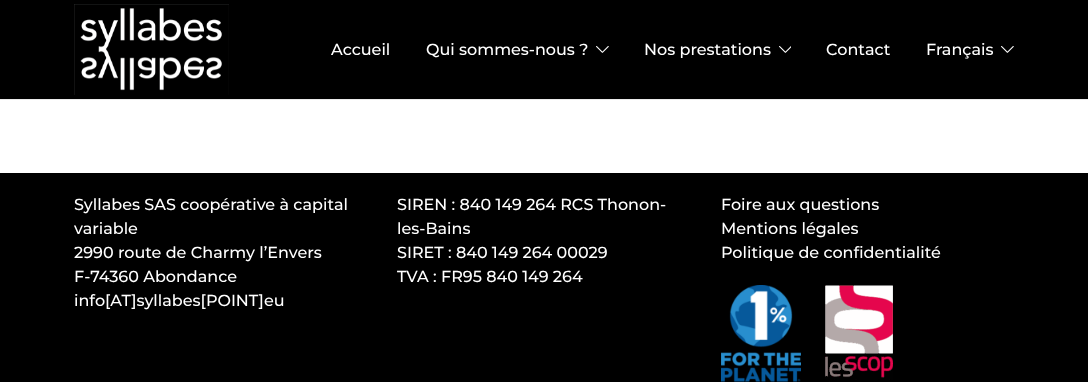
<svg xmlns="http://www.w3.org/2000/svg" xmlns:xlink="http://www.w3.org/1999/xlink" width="1088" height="382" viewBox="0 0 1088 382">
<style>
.cls-1{font:100 16px Montserrat;fill:#ffffff}
</style>
<rect width="100%" height="100%" fill="#ffffff"/>
<rect fill="#000000" x="0" y="0" width="1088" height="99"/>
<rect fill="#eaeaea" x="0" y="99" width="1088" height="1"/>
<image xlink:href="image0.png" x="74" y="4" width="155" height="91"/>
<image xlink:href="image1.png" x="596" y="46" width="13" height="7"/>
<image xlink:href="image2.png" x="779" y="46" width="12" height="7"/>
<image xlink:href="image1.png" x="1001" y="46" width="13" height="7"/>
<rect fill="#000000" x="0" y="173" width="1088" height="209"/>
<image xlink:href="image3.png" x="721" y="285" width="80" height="97"/>
<image xlink:href="image4.png" x="825" y="285" width="68" height="97"/>
<text class="cls-1" x="331" y="55">Accueil</text>
<text class="cls-1" x="426" y="55">Qui sommes-nous ?</text>
<text class="cls-1" x="644" y="55">Nos prestations</text>
<text class="cls-1" x="826" y="55">Contact</text>
<text class="cls-1" x="926" y="55">Français</text>
<text class="cls-1"><tspan x="74" y="210">Syllabes SAS coopérative à capital</tspan><tspan x="74" y="234">variable</tspan><tspan x="74" y="258">2990 route de Charmy l’Envers</tspan><tspan x="74" y="282">F-74360 Abondance</tspan><tspan x="74" y="306">info[AT]syllabes[POINT]eu</tspan></text>
<text class="cls-1"><tspan x="397" y="210">SIREN : 840 149 264 RCS Thonon-</tspan><tspan x="397" y="234">les-Bains</tspan><tspan x="397" y="258">SIRET : 840 149 264 00029</tspan><tspan x="397" y="282">TVA : FR95 840 149 264</tspan></text>
<text class="cls-1"><tspan x="721" y="210">Foire aux questions</tspan><tspan x="721" y="234">Mentions légales</tspan><tspan x="721" y="258">Politique de confidentialité</tspan></text>
</svg>
